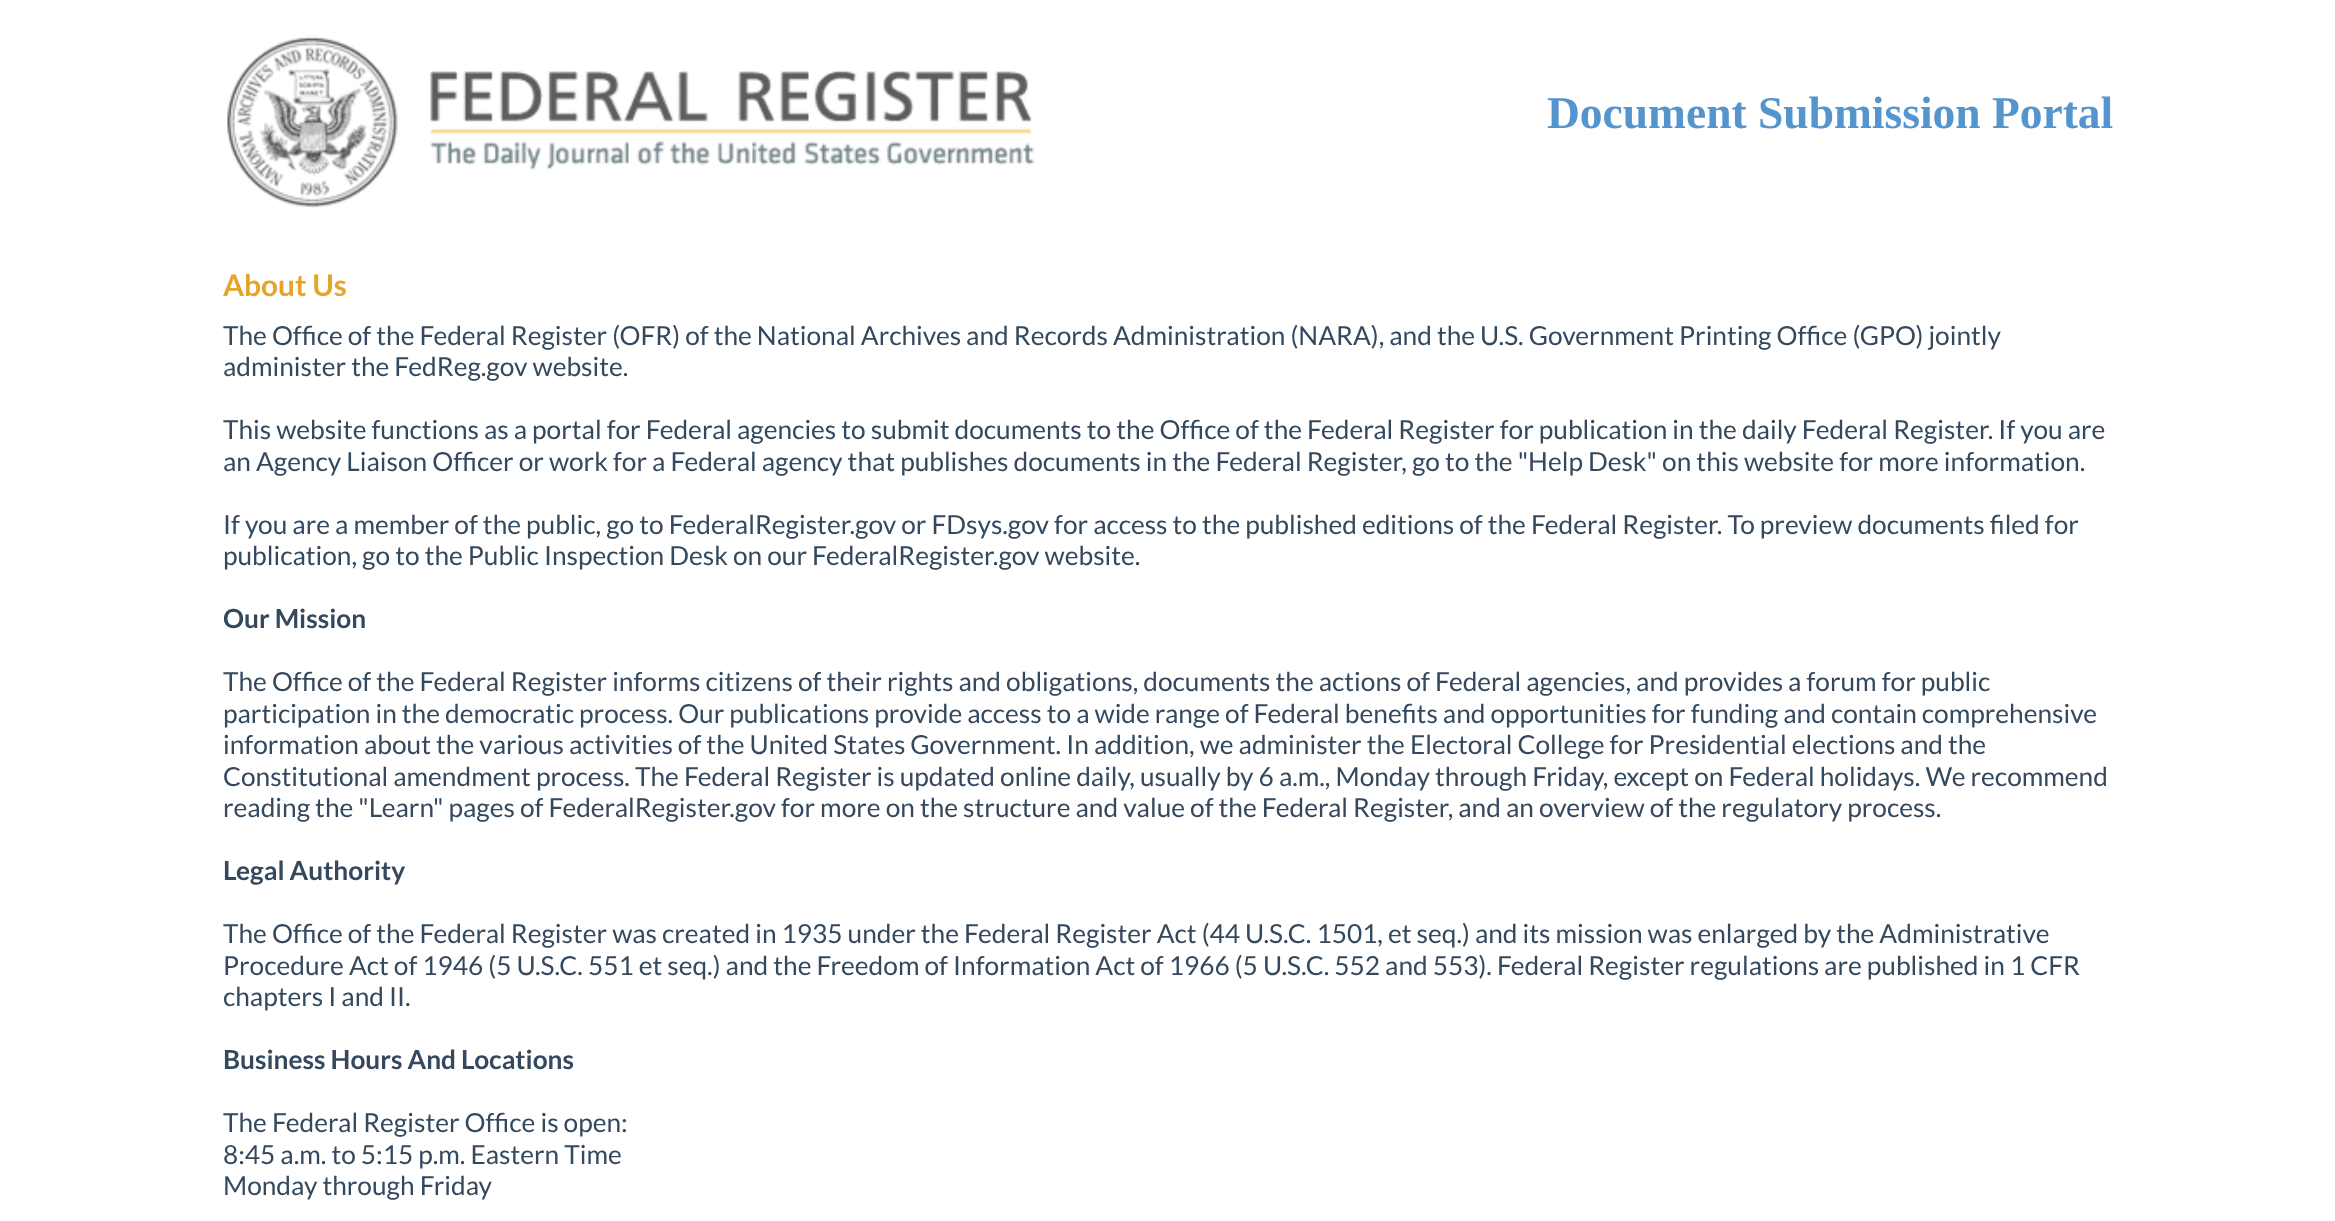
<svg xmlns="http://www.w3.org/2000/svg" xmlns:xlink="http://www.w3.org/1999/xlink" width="2335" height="1221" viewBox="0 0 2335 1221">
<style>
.cls-1{font:bold 45.5px Liberation Serif;fill:#5595ce}
.cls-2{font:bold 29.75px Lato;fill:#e4a529}
.cls-3{font:26.25px Lato;fill:#34495e}
.cls-4{font:bold 26.25px Lato;fill:#34495e}
</style>
<rect width="100%" height="100%" fill="#ffffff"/>
<image xlink:href="image0.png" x="227" y="36" width="808" height="172"/>
<text class="cls-1" x="1547" y="128">Document Submission Portal</text>
<text class="cls-2" x="223" y="296">About Us</text>
<text class="cls-3"><tspan x="223" y="345">The Office of the Federal Register (OFR) of the National Archives and Records Administration (NARA), and the U.S. Government Printing Office (GPO) jointly</tspan><tspan x="223" y="376">administer the FedReg.gov website.</tspan></text>
<text class="cls-3"><tspan x="223" y="439">This website functions as a portal for Federal agencies to submit documents to the Office of the Federal Register for publication in the daily Federal Register. If you are</tspan><tspan x="223" y="471">an Agency Liaison Officer or work for a Federal agency that publishes documents in the Federal Register, go to the "Help Desk" on this website for more information.</tspan></text>
<text class="cls-3"><tspan x="223" y="534">If you are a member of the public, go to FederalRegister.gov or FDsys.gov for access to the published editions of the Federal Register. To preview documents filed for</tspan><tspan x="223" y="565">publication, go to the Public Inspection Desk on our FederalRegister.gov website.</tspan></text>
<text class="cls-4" x="223" y="628">Our Mission</text>
<text class="cls-3"><tspan x="223" y="691">The Office of the Federal Register informs citizens of their rights and obligations, documents the actions of Federal agencies, and provides a forum for public</tspan><tspan x="223" y="723">participation in the democratic process. Our publications provide access to a wide range of Federal benefits and opportunities for funding and contain comprehensive</tspan><tspan x="223" y="754">information about the various activities of the United States Government. In addition, we administer the Electoral College for Presidential elections and the</tspan><tspan x="223" y="786">Constitutional amendment process. The Federal Register is updated online daily, usually by 6 a.m., Monday through Friday, except on Federal holidays. We recommend</tspan><tspan x="223" y="817">reading the "Learn" pages of FederalRegister.gov for more on the structure and value of the Federal Register, and an overview of the regulatory process.</tspan></text>
<text class="cls-4" x="223" y="880">Legal Authority</text>
<text class="cls-3"><tspan x="223" y="943">The Office of the Federal Register was created in 1935 under the Federal Register Act (44 U.S.C. 1501, et seq.) and its mission was enlarged by the Administrative</tspan><tspan x="223" y="975">Procedure Act of 1946 (5 U.S.C. 551 et seq.) and the Freedom of Information Act of 1966 (5 U.S.C. 552 and 553). Federal Register regulations are published in 1 CFR</tspan><tspan x="223" y="1006">chapters I and II.</tspan></text>
<text class="cls-4" x="223" y="1069">Business Hours And Locations</text>
<text class="cls-3"><tspan x="223" y="1132">The Federal Register Office is open:</tspan><tspan x="223" y="1164">8:45 a.m. to 5:15 p.m. Eastern Time</tspan><tspan x="223" y="1195">Monday through Friday</tspan></text>
</svg>
